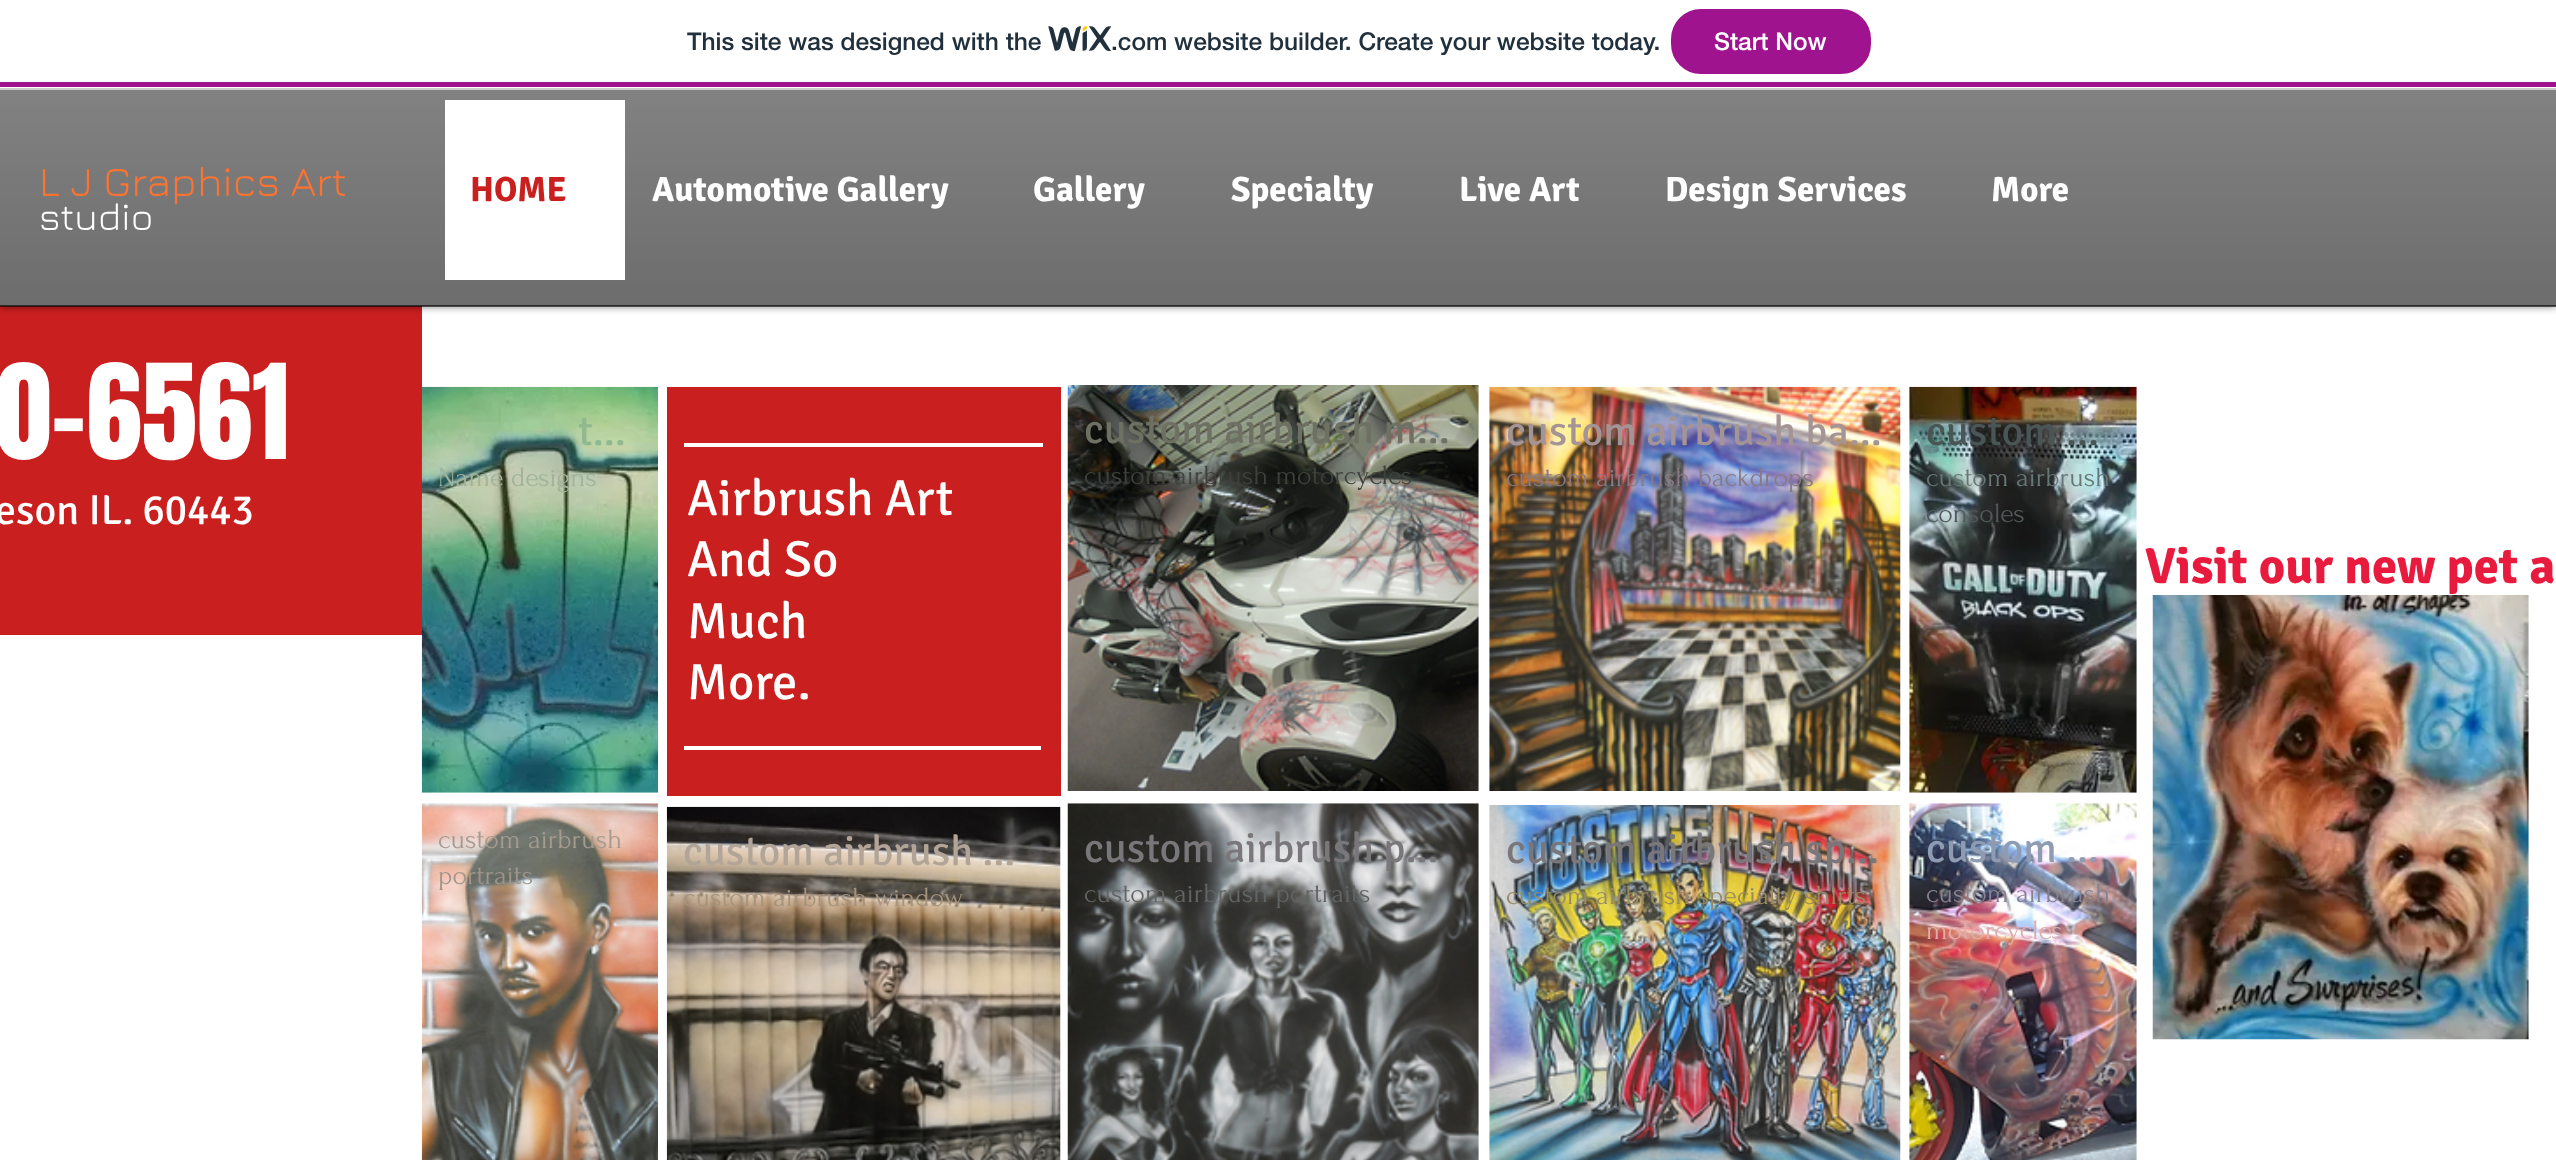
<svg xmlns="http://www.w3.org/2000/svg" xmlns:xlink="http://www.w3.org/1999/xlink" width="2556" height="1160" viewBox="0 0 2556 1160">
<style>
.cls-1{font:500 24.5px 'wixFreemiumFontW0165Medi';fill:#20303c}
.cls-2{font:500 24.5px 'wixFreemiumFontW0165Medi';fill:#ffffff}
.cls-3{font:42px Jura;fill:#fd7332}
.cls-4{font:38.5px Jura;fill:#ffffff}
.cls-5{font:bold 35px Signika;fill:#ca1f1f}
.cls-6{font:bold 35px Signika;fill:#ffffff}
.cls-7{font:112px Anton;fill:#ffffff}
.cls-8{font:42px Signika;fill:#ffffff}
.cls-9{font:42px Signika;fill:#90b891}
.cls-10{font:28px Forum;fill:#a1b39b}
.cls-11{font:28px Forum;fill:#a69b91}
.cls-12{font:28px Forum;fill:#a0958c}
.cls-13{font:50.75px Signika;fill:#ffffff}
.cls-14{font:42px Signika;fill:#6d7062}
.cls-15{font:28px Forum;fill:#3f423c}
.cls-16{font:42px Signika;fill:#7a777b}
.cls-17{font:28px Forum;fill:#636464}
.cls-18{font:42px Signika;fill:#a59495}
.cls-19{font:28px Forum;fill:#887985}
.cls-20{font:28px Forum;fill:#998a5f}
.cls-21{font:42px Signika;fill:#4a5656}
.cls-22{font:28px Forum;fill:#677776}
.cls-23{font:28px Forum;fill:#51595b}
.cls-24{font:42px Signika;fill:#8f9bb2}
.cls-25{font:28px Forum;fill:#888290}
.cls-26{font:28px Forum;fill:#ddaeae}
.cls-27{font:bold 50.75px Signika;fill:#e81a3e}
.cls-28{font:42px Signika;fill:#b2a597}
.cls-29{font:28px Forum;fill:#a5937e}
</style>
<rect width="100%" height="100%" fill="#ffffff"/>
<rect fill="#ca1f1f" x="0" y="306" width="422" height="329"/>
<rect fill="#000000" fill-opacity="0.6" filter="blur(4.5px)" x="0" y="88" width="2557" height="218"/>
<rect fill="#ffffff" x="0" y="78" width="2556" height="10"/>
<rect fill="#a0138e" x="0" y="82" width="2556" height="5"/>
<image xlink:href="image0.png" x="1048" y="26" width="63" height="26"/>
<rect fill="#a0138e" stroke="#a0138e" stroke-width="2" x="1672" y="10" width="198" height="63" rx="29"/>
<rect fill="#575757" x="0" y="90" width="2556" height="216"/>
<image xlink:href="image1.png" x="0" y="90" width="2556" height="217"/>
<rect fill="#000000" fill-opacity="0.6" x="0" y="305" width="2556" height="2"/>
<rect fill="#cdcdcd" x="0" y="88" width="2556" height="2"/>
<rect fill="#ffffff" x="445" y="100" width="180" height="180"/>
<image xlink:href="image2.png" x="421" y="386" width="237" height="407"/>
<image xlink:href="image3.png" x="421" y="803" width="237" height="357"/>
<rect fill="#ca1f1f" x="667" y="387" width="394" height="409"/>
<rect fill="#ffffff" x="684" y="443" width="359" height="4"/>
<rect fill="#ffffff" x="684" y="746" width="357" height="4"/>
<image xlink:href="image4.png" x="1067" y="385" width="412" height="406"/>
<image xlink:href="image5.png" x="1067" y="803" width="412" height="357"/>
<image xlink:href="image6.png" x="1489" y="386" width="412" height="405"/>
<image xlink:href="image7.png" x="1489" y="805" width="412" height="355"/>
<image xlink:href="image8.png" x="1909" y="386" width="228" height="407"/>
<image xlink:href="image9.png" x="1909" y="803" width="228" height="357"/>
<image xlink:href="image10.png" x="666" y="806" width="395" height="354"/>
<image xlink:href="image11.png" x="2152" y="595" width="377" height="445"/>
<text class="cls-1" x="687" y="50">This site was designed with the</text>
<text class="cls-1" x="1111" y="50">.com website builder. Create your website today.</text>
<text class="cls-2" x="1714" y="50">Start Now</text>
<text class="cls-3" x="39" y="196">L J Graphics Art</text>
<text class="cls-4" x="39" y="230">studio</text>
<text class="cls-5" x="470" y="201">HOME</text>
<text class="cls-6" x="652" y="201">Automotive Gallery</text>
<text class="cls-6" x="1033" y="201">Gallery</text>
<text class="cls-6" x="1231" y="201">Specialty</text>
<text class="cls-6" x="1459" y="201">Live Art</text>
<text class="cls-6" x="1665" y="201">Design Services</text>
<text class="cls-6" x="1991" y="201">More</text>
<text class="cls-7" x="-4" y="459">0-6561</text>
<text class="cls-8" x="-5" y="524">eson IL. 60443</text>
<text class="cls-9" x="578" y="445">t...</text>
<text class="cls-10" x="438" y="486">Name designs</text>
<text class="cls-11" x="438" y="848">custom airbrush</text>
<text class="cls-12" x="438" y="884">portraits</text>
<text class="cls-13"><tspan x="687" y="515">Airbrush Art</tspan><tspan x="687" y="576">And So</tspan><tspan x="687" y="638">Much</tspan><tspan x="687" y="699">More.</tspan></text>
<text class="cls-14" x="1084" y="443">custom airbrush m...</text>
<text class="cls-15" x="1084" y="484">custom airbrush motorcycles</text>
<text class="cls-16" x="1084" y="862">custom airbrush p...</text>
<text class="cls-17" x="1084" y="902">custom airbrush portraits</text>
<text class="cls-18" x="1506" y="445">custom airbrush ba...</text>
<text class="cls-19" x="1506" y="486">custom airbrush backdrops</text>
<text class="cls-16" x="1506" y="863">custom airbrush sp...</text>
<text class="cls-20" x="1506" y="904">custom airbrush specialty shirts</text>
<text class="cls-21" x="1926" y="445">custom ...</text>
<text class="cls-22" x="1926" y="486">custom airbrush</text>
<text class="cls-23" x="1926" y="522">consoles</text>
<text class="cls-24" x="1926" y="862">custom ...</text>
<text class="cls-25" x="1926" y="902">custom airbrush</text>
<text class="cls-26" x="1926" y="939">motorcycles</text>
<text class="cls-27" x="2145" y="583">Visit our new pet a</text>
<text class="cls-28" x="683" y="865">custom airbrush ...</text>
<text class="cls-29" x="683" y="906">custom airbrush window</text>
</svg>
